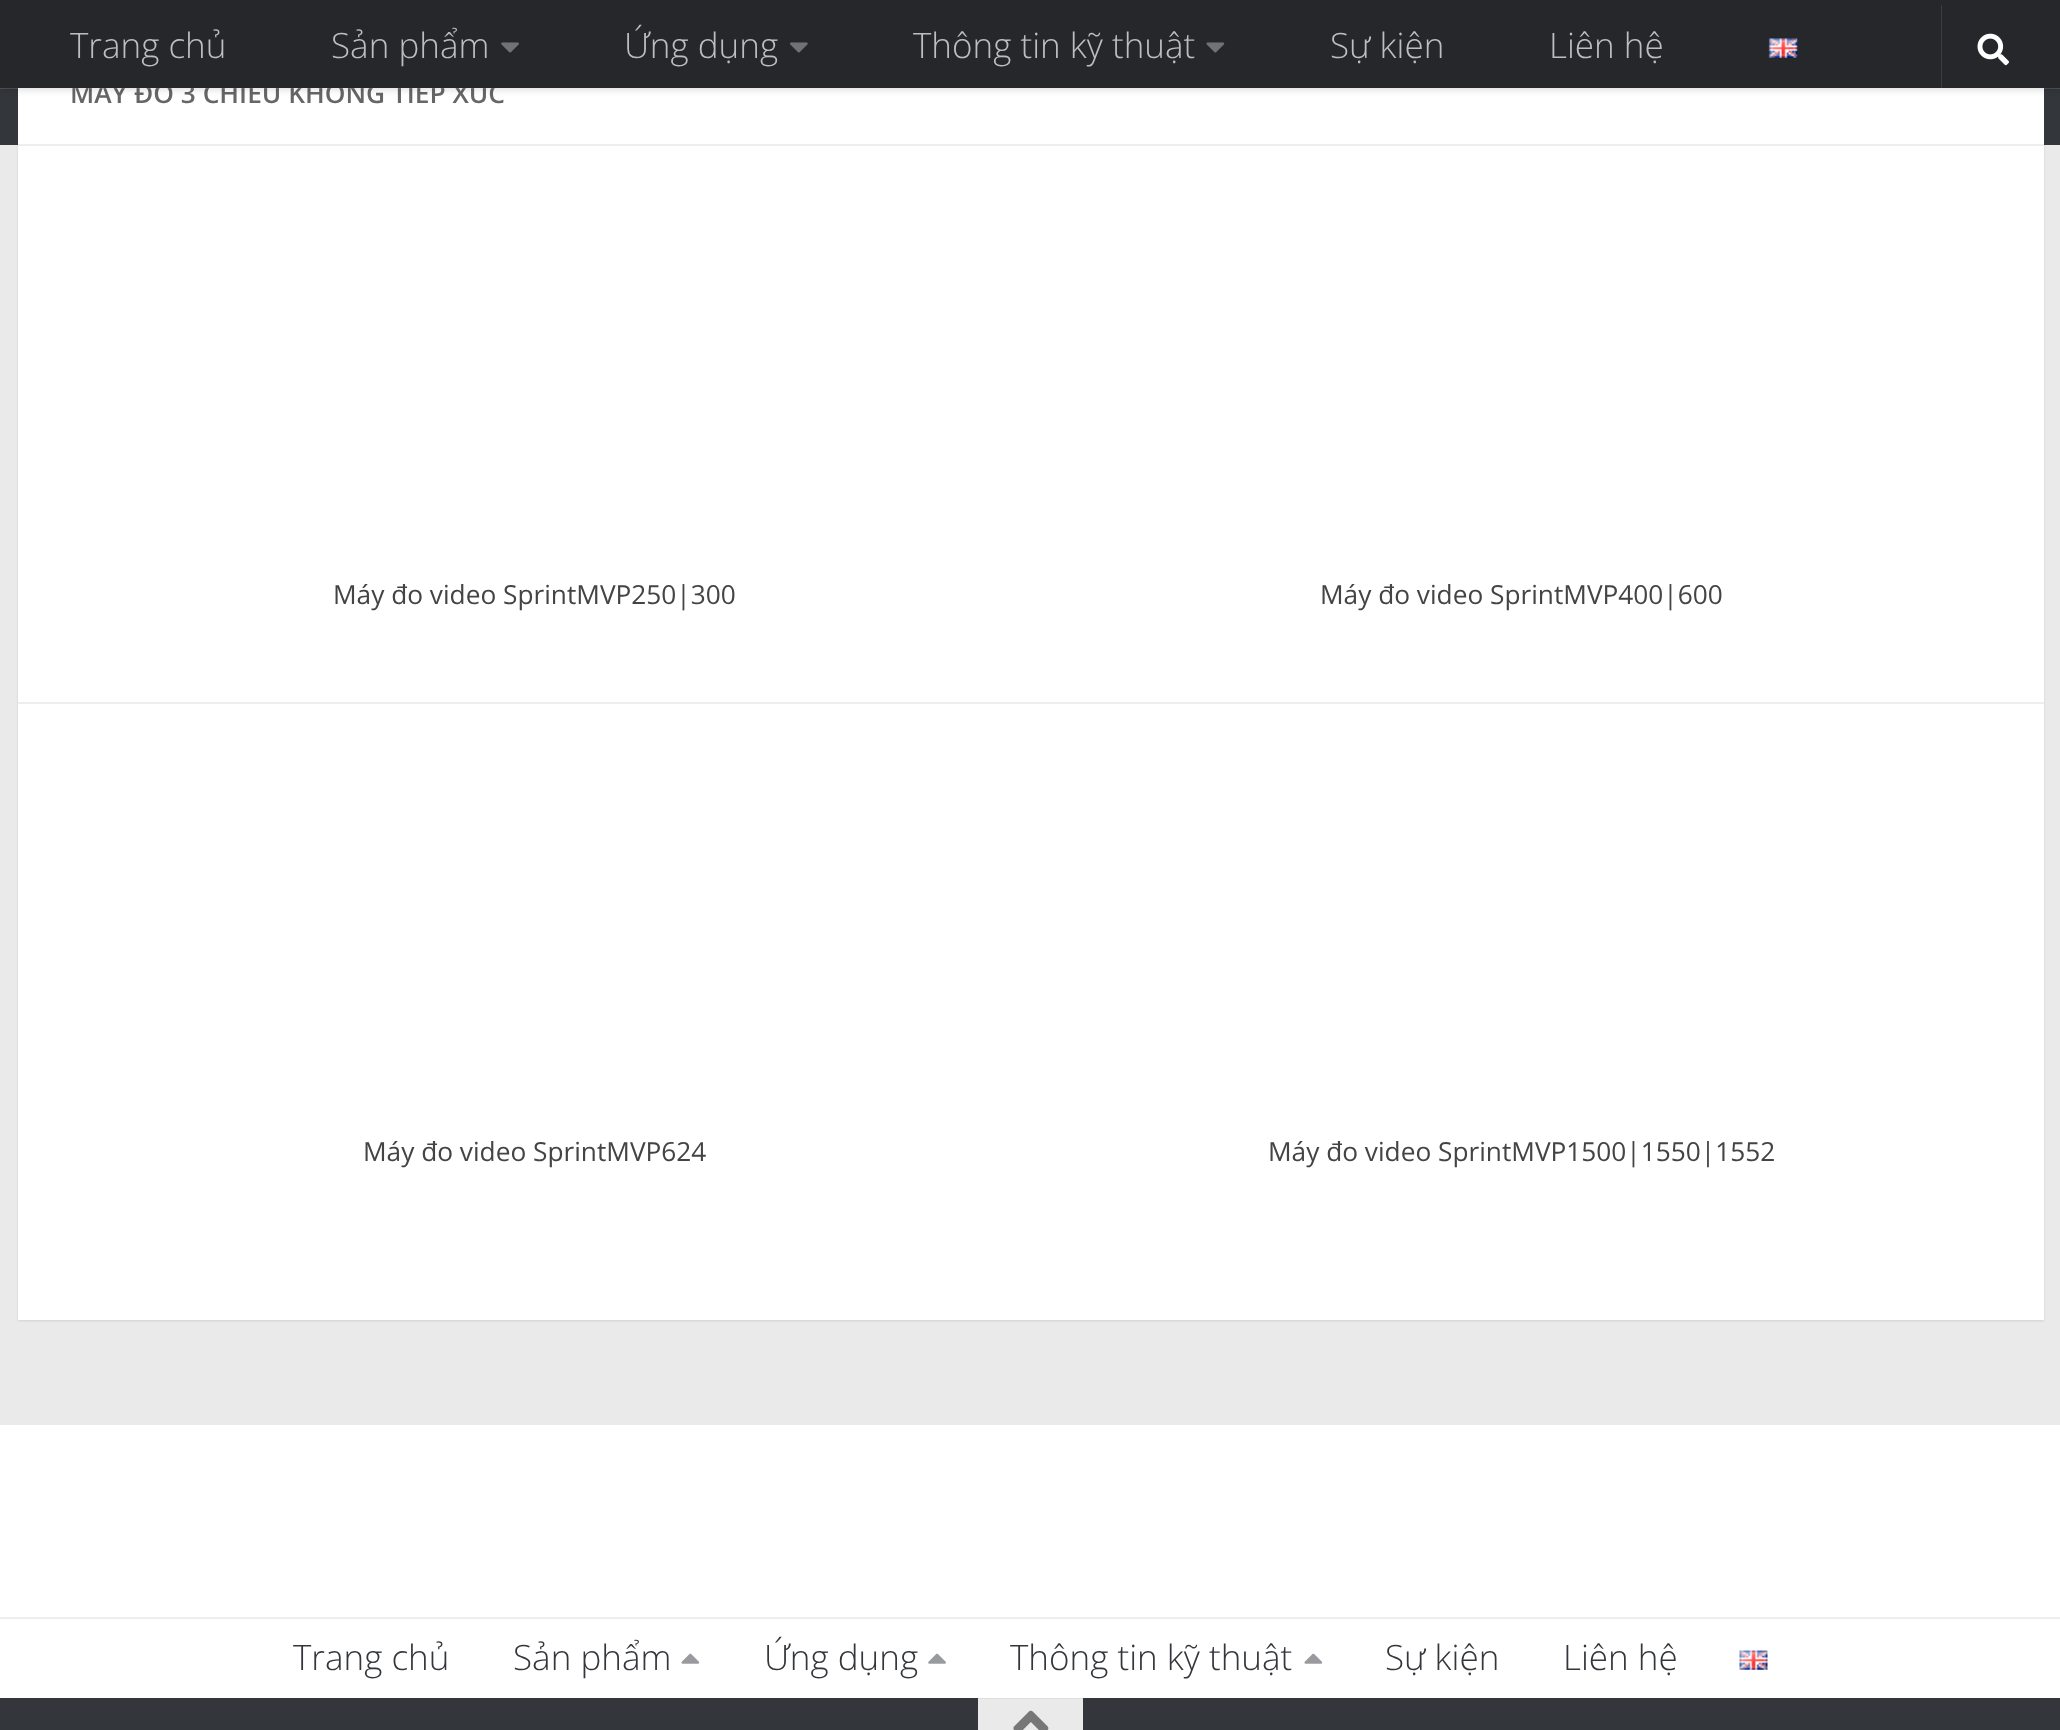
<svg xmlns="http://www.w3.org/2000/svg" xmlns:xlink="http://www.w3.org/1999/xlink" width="2060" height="1730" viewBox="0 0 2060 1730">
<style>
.cls-1{font:600 26.3px Open Sans;fill:#666666}
.cls-2{font:300 35px Open Sans;fill:#bebebf}
.cls-3{font:26.25px Open Sans;fill:#444444}
.cls-4{font:300 35px Open Sans;fill:#33363b}
</style>
<defs>
<clipPath id="clip1"><rect x="0" y="0" width="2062" height="88"/></clipPath>
</defs>
<rect width="100%" height="100%" fill="#eaeaea"/>
<rect fill="#000000" fill-opacity="0.1" filter="blur(1px)" x="18" y="42" width="2026" height="1279"/>
<rect fill="#33363b" x="0" y="88" width="2060" height="57"/>
<rect fill="#ffffff" x="18" y="88" width="2026" height="1232"/>
<rect fill="#eeeeee" x="18" y="144" width="2026" height="2"/>
<rect fill="#eeeeee" x="18" y="702" width="2026" height="2"/>
<rect fill="#ffffff" x="0" y="1425" width="2060" height="273"/>
<rect fill="#eeeeee" x="0" y="1617" width="2060" height="2"/>
<image xlink:href="image5.png" x="681" y="1653" width="19" height="11"/>
<image xlink:href="image6.png" x="928" y="1653" width="18" height="11"/>
<image xlink:href="image5.png" x="1304" y="1653" width="19" height="11"/>
<image xlink:href="image7.png" x="1739" y="1650" width="29" height="20"/>
<rect fill="#33363b" x="0" y="1698" width="2060" height="32"/>
<rect fill="#eaeaea" x="978" y="1699" width="105" height="31"/>
<rect fill="#dedede" x="978" y="1698" width="105" height="1"/>
<image xlink:href="image8.png" x="1013" y="1710" width="36" height="20"/>
<text class="cls-1" x="70" y="103">MÁY ĐO 3 CHIỀU KHÔNG TIẾP XÚC</text>
<path fill="#ffffff" fill-opacity="0.15" d="M0 88V89H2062V2V88Z"/>
<rect fill="#000000" fill-opacity="0.2" filter="blur(4.5px)" x="0" y="0" width="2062" height="88"/>
<rect fill="#26272b" x="0" y="0" width="2060" height="88"/>
<image xlink:href="image4.png" x="1977" y="33" width="32" height="33"/>
<g clip-path="url(#clip1)">
<path fill="#3c3d40" d="M1941 5V93H2042H1942V5H2042Z"/>
</g>
<image xlink:href="image3.png" x="1768" y="38" width="30" height="20"/>
<text class="cls-2" x="1549" y="58">Liên hệ</text>
<text class="cls-2" x="1330" y="58">Sự kiện</text>
<image xlink:href="image2.png" x="1206" y="42" width="19" height="11"/>
<text class="cls-2" x="913" y="58">Thông tin kỹ thuật</text>
<image xlink:href="image1.png" x="790" y="42" width="18" height="11"/>
<text class="cls-2" x="624" y="58">Ứng dụng</text>
<image xlink:href="image0.png" x="501" y="42" width="18" height="11"/>
<text class="cls-2" x="331" y="58">Sản phẩm</text>
<text class="cls-2" x="70" y="58">Trang chủ</text>
<text class="cls-3" x="333" y="604">Máy đo video SprintMVP250|300</text>
<text class="cls-3" x="1320" y="604">Máy đo video SprintMVP400|600</text>
<text class="cls-3" x="363" y="1161">Máy đo video SprintMVP624</text>
<text class="cls-3" x="1268" y="1161">Máy đo video SprintMVP1500|1550|1552</text>
<text class="cls-4" x="293" y="1670">Trang chủ</text>
<text class="cls-4" x="513" y="1670">Sản phẩm</text>
<text class="cls-4" x="764" y="1670">Ứng dụng</text>
<text class="cls-4" x="1010" y="1670">Thông tin kỹ thuật</text>
<text class="cls-4" x="1385" y="1670">Sự kiện</text>
<text class="cls-4" x="1563" y="1670">Liên hệ</text>
</svg>
